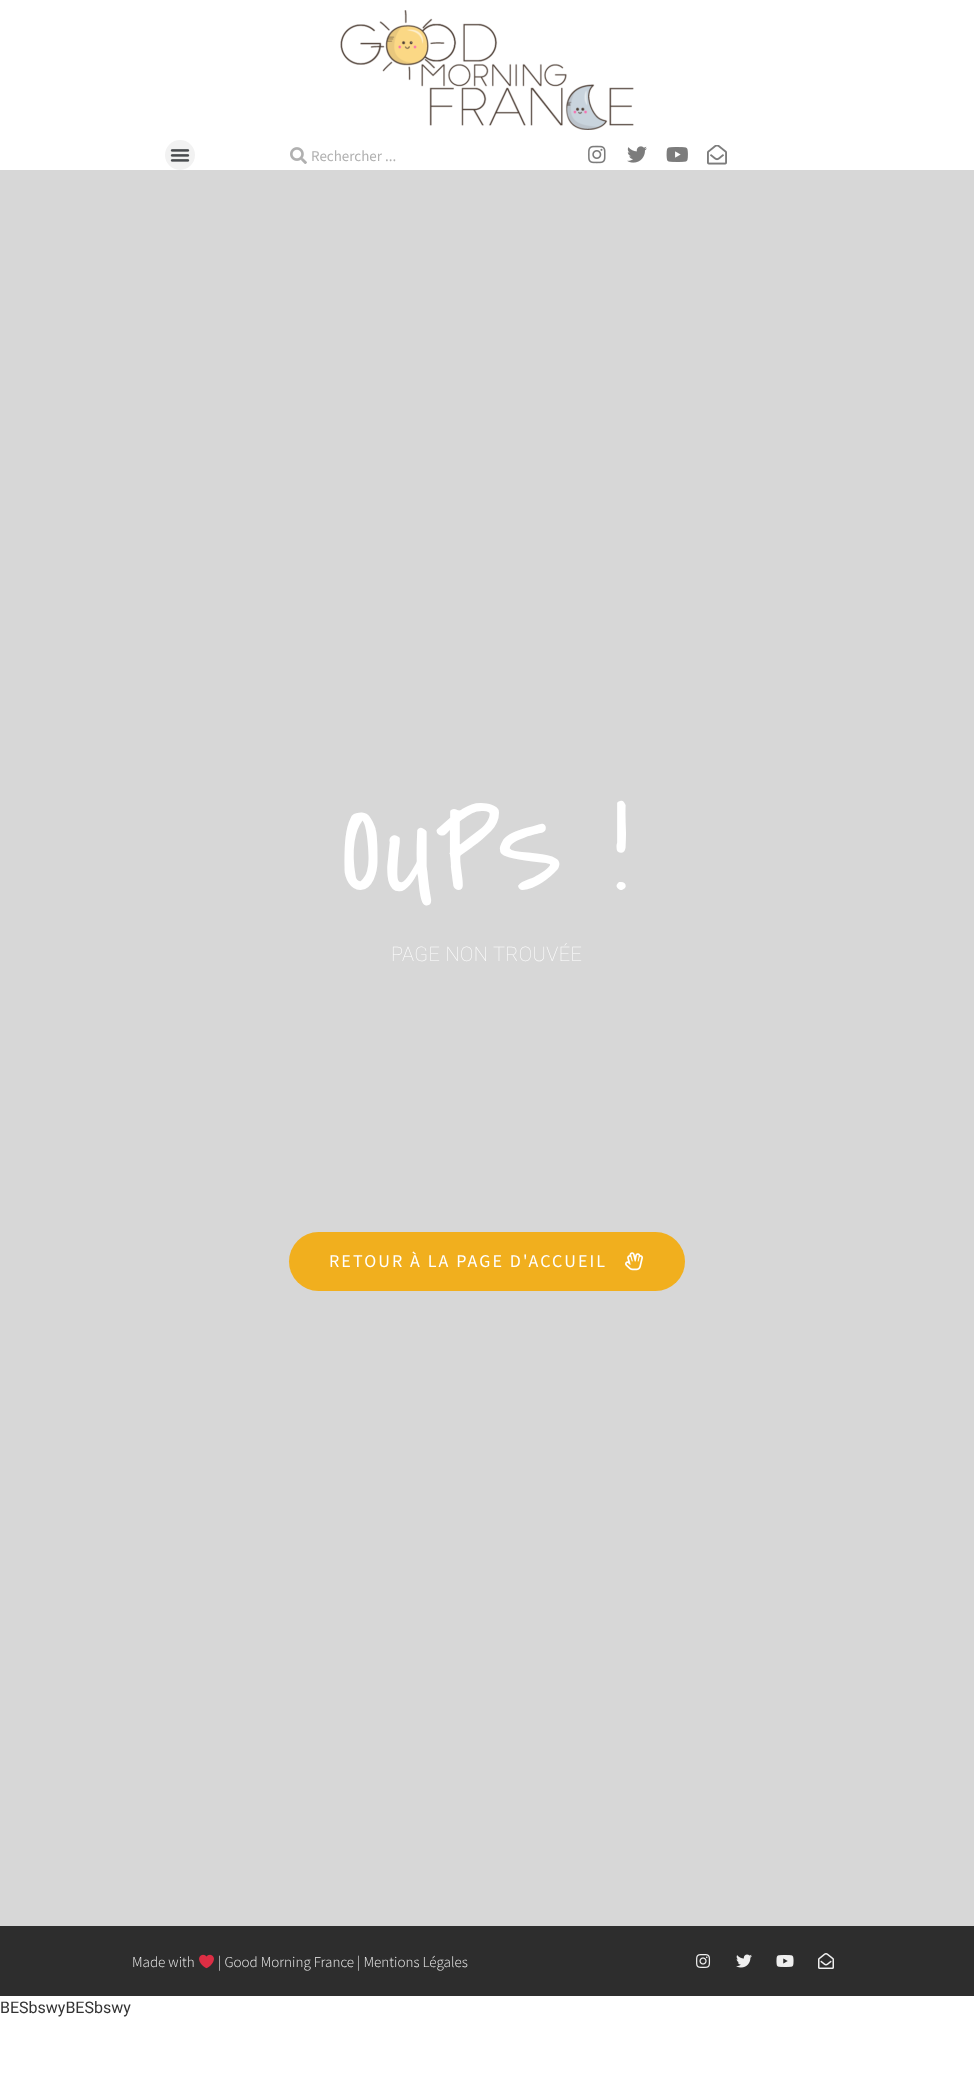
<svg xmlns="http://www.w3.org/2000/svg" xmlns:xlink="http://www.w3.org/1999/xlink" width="974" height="2091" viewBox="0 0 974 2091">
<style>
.cls-1{font:15px Source Sans Pro;fill:#b0b0b0}
.cls-2{font:119px Covered By Your Grace;letter-spacing:2.5px;fill:#ffffff}
.cls-3{font:100 20px Roboto;letter-spacing:0.4px;fill:#ffffff}
.cls-4{font:18px Source Sans Pro;letter-spacing:2.1px;fill:#ffffff}
.cls-5{font:300 15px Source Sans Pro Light;fill:#efefef}
.cls-6{font:16px Roboto;fill:#333333}
</style>
<rect width="100%" height="100%" fill="#ffffff"/>
<image xlink:href="image0.png" x="340" y="10" width="294" height="120"/>
<circle fill="#f2f2f2" cx="180" cy="155" r="15"/>
<image xlink:href="image1.png" x="170" y="149" width="20" height="13"/>
<image xlink:href="image2.png" x="290" y="147" width="17" height="17"/>
<image xlink:href="image3.png" x="588" y="145" width="18" height="19"/>
<image xlink:href="image4.png" x="627" y="146" width="20" height="17"/>
<image xlink:href="image5.png" x="666" y="147" width="22" height="15"/>
<image xlink:href="image6.png" x="707" y="145" width="20" height="20"/>
<rect fill="#d7d7d7" x="0" y="170" width="974" height="1756"/>
<rect fill="#f1af1e" x="289" y="1232" width="396" height="59" rx="29.5"/>
<image xlink:href="image7.png" x="625" y="1252" width="18" height="19"/>
<rect fill="#2d2d2d" x="0" y="1926" width="974" height="70"/>
<image xlink:href="image8.png" x="199" y="1954" width="15" height="15"/>
<image xlink:href="image9.png" x="696" y="1954" width="15" height="14"/>
<image xlink:href="image10.png" x="736" y="1954" width="16" height="14"/>
<image xlink:href="image11.png" x="776" y="1955" width="18" height="12"/>
<image xlink:href="image12.png" x="818" y="1953" width="16" height="16"/>
<text class="cls-1" x="311" y="161">Rechercher ...</text>
<text class="cls-2" x="342" y="890">OUPS !</text>
<text class="cls-3" x="391" y="961">PAGE NON TROUVÉE</text>
<text class="cls-4" x="329" y="1267">RETOUR À LA PAGE D'ACCUEIL</text>
<text class="cls-5" x="132" y="1967">Made with</text>
<text class="cls-5" x="218" y="1967">| Good Morning France | Mentions Légales</text>
<text class="cls-6" x="0" y="2013">BESbswyBESbswy</text>
</svg>
